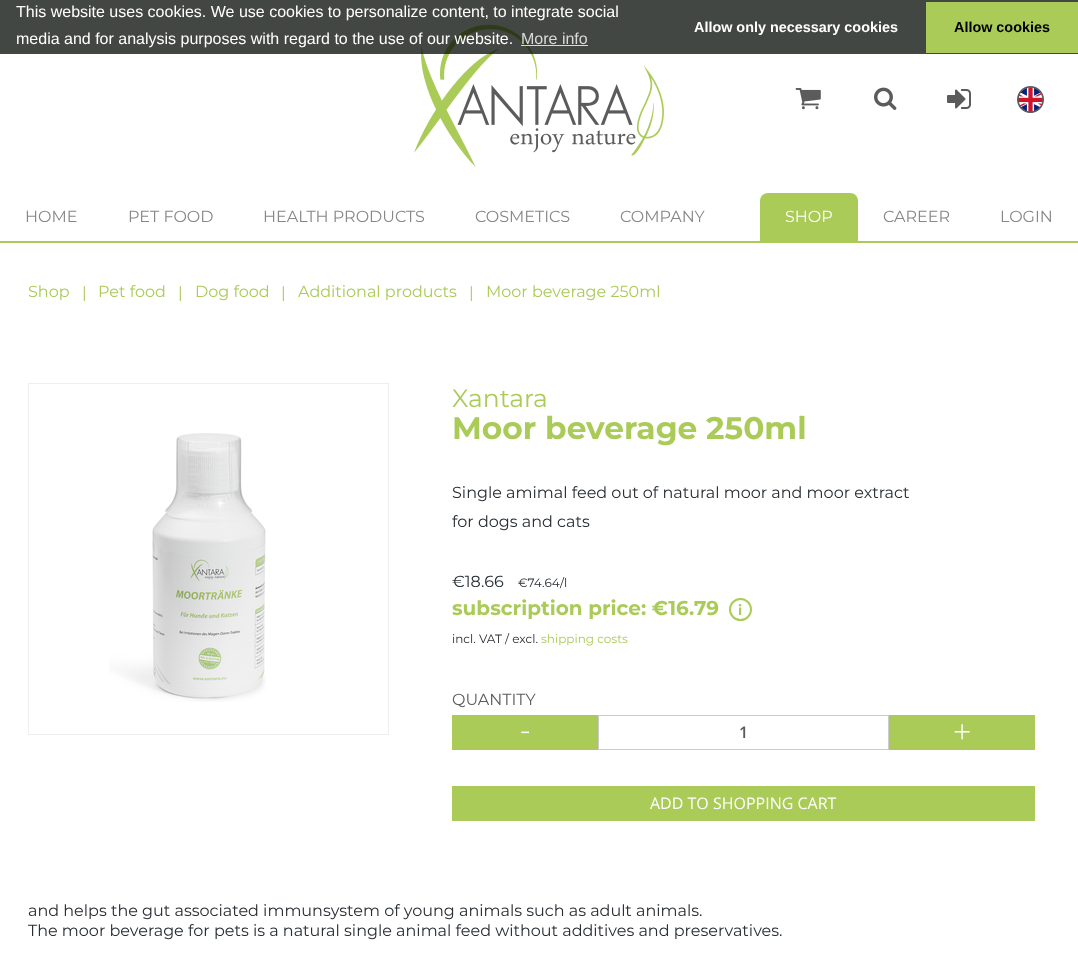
<svg xmlns="http://www.w3.org/2000/svg" xmlns:xlink="http://www.w3.org/1999/xlink" width="1078" height="963" viewBox="0 0 1078 963">
<style>
.cls-1{font:16px Liberation Sans;fill:#ffffff}
.cls-2{font:16px Liberation Sans;fill:#d9dad9}
.cls-3{font:bold 14.4px Liberation Sans;fill:#ffffff}
.cls-4{font:bold 14.4px Liberation Sans;fill:#000000}
.cls-5{font:16px Montserrat;fill:#878787}
.cls-6{font:16px Montserrat;fill:#ffffff}
.cls-7{font:16px Montserrat;fill:#abcb59}
.cls-8{font:25px Montserrat;fill:#abcb59}
.cls-9{font:bold 31.25px Montserrat;fill:#abcb59}
.cls-10{font:16px Montserrat;fill:#292e33}
.cls-11{font:12px Montserrat;fill:#292e33}
.cls-12{font:bold 20px Montserrat;fill:#abcb59}
.cls-13{font:bold 14px Montserrat;fill:#abcb59}
.cls-14{font:12px Montserrat;fill:#abcb59}
.cls-15{font:16px Montserrat;fill:#5b5b5b}
.cls-16{font:300 32px Open Sans;fill:#ffffff}
.cls-17{font:600 16px Open Sans;fill:#5b5b5b}
.cls-18{font:16px Open Sans;fill:#ffffff}
</style>
<rect width="100%" height="100%" fill="#ffffff"/>
<image xlink:href="image0.png" x="414" y="24" width="250" height="143"/>
<rect fill="#040a04" fill-opacity="0.75" x="0" y="0" width="1078" height="54"/>
<rect fill="#ffffff" fill-opacity="0.8" x="521" y="45" width="67" height="1"/>
<rect fill="#abcb59" x="926" y="2" width="152" height="51"/>
<image xlink:href="image1.png" x="795" y="88" width="26" height="22"/>
<image xlink:href="image2.png" x="874" y="87" width="23" height="23"/>
<image xlink:href="image3.png" x="947" y="89" width="24" height="20"/>
<image xlink:href="image4.png" x="1017" y="86" width="27" height="27"/>
<rect fill="#abcb59" x="0" y="241" width="1078" height="2"/>
<path fill="#abcb59" d="M768 193H850C854.5 193 858 196.5 858 201V241H760V201C760 196.5 763.5 193 768 193Z"/>
<rect fill="none" stroke="#eeeeee" x="28.5" y="383.5" width="360" height="351"/>
<image xlink:href="image5.png" x="109" y="433" width="157" height="269"/>
<circle fill="none" stroke="#abcb59" stroke-width="2" cx="740.5" cy="609.5" r="10.5"/>
<rect fill="#abcb59" x="452" y="715" width="146" height="35"/>
<rect fill="none" stroke="#cccccc" x="598.5" y="715.5" width="290" height="34"/>
<rect fill="#abcb59" x="889" y="715" width="146" height="35"/>
<rect fill="#abcb59" x="452" y="786" width="583" height="35"/>
<text class="cls-1"><tspan x="16" y="17">This website uses cookies. We use cookies to personalize content, to integrate social</tspan><tspan x="16" y="44">media and for analysis purposes with regard to the use of our website.</tspan></text>
<text class="cls-2" x="521" y="44">More info</text>
<text class="cls-3" x="694" y="32">Allow only necessary cookies</text>
<text class="cls-4" x="954" y="32">Allow cookies</text>
<text class="cls-5" x="25" y="222">HOME</text>
<text class="cls-5" x="128" y="222">PET FOOD</text>
<text class="cls-5" x="263" y="222">HEALTH PRODUCTS</text>
<text class="cls-5" x="475" y="222">COSMETICS</text>
<text class="cls-5" x="620" y="222">COMPANY</text>
<text class="cls-6" x="785" y="222">SHOP</text>
<text class="cls-5" x="883" y="222">CAREER</text>
<text class="cls-5" x="1000" y="222">LOGIN</text>
<text class="cls-7" x="28" y="297">Shop</text>
<text class="cls-7" x="82" y="298">|</text>
<text class="cls-7" x="98" y="297">Pet food</text>
<text class="cls-7" x="178" y="298">|</text>
<text class="cls-7" x="195" y="297">Dog food</text>
<text class="cls-7" x="281" y="298">|</text>
<text class="cls-7" x="298" y="297">Additional products</text>
<text class="cls-7" x="469" y="298">|</text>
<text class="cls-7" x="486" y="297">Moor beverage 250ml</text>
<text class="cls-8" x="452" y="407">Xantara</text>
<text class="cls-9" x="452" y="439">Moor beverage 250ml</text>
<text class="cls-10"><tspan x="452" y="498">Single amimal feed out of natural moor and moor extract</tspan><tspan x="452" y="527">for dogs and cats</tspan></text>
<text class="cls-10" x="452" y="587">€18.66</text>
<text class="cls-11" x="518" y="587">€74.64/l</text>
<text class="cls-12" x="452" y="615">subscription price: €16.79</text>
<text class="cls-13" x="738" y="615">i</text>
<text class="cls-11" x="452" y="643">incl. VAT / excl.</text>
<text class="cls-14" x="541" y="643">shipping costs</text>
<text class="cls-15" x="452" y="705">QUANTITY</text>
<text class="cls-16" x="520" y="741">-</text>
<text class="cls-17" x="739" y="738">1</text>
<text class="cls-16" x="953" y="743">+</text>
<text class="cls-18" x="650" y="809">ADD TO SHOPPING CART</text>
<text class="cls-10"><tspan x="28" y="916">and helps the gut associated immunsystem of young animals such as adult animals.</tspan><tspan x="28" y="936">The moor beverage for pets is a natural single animal feed without additives and preservatives.</tspan></text>
</svg>
